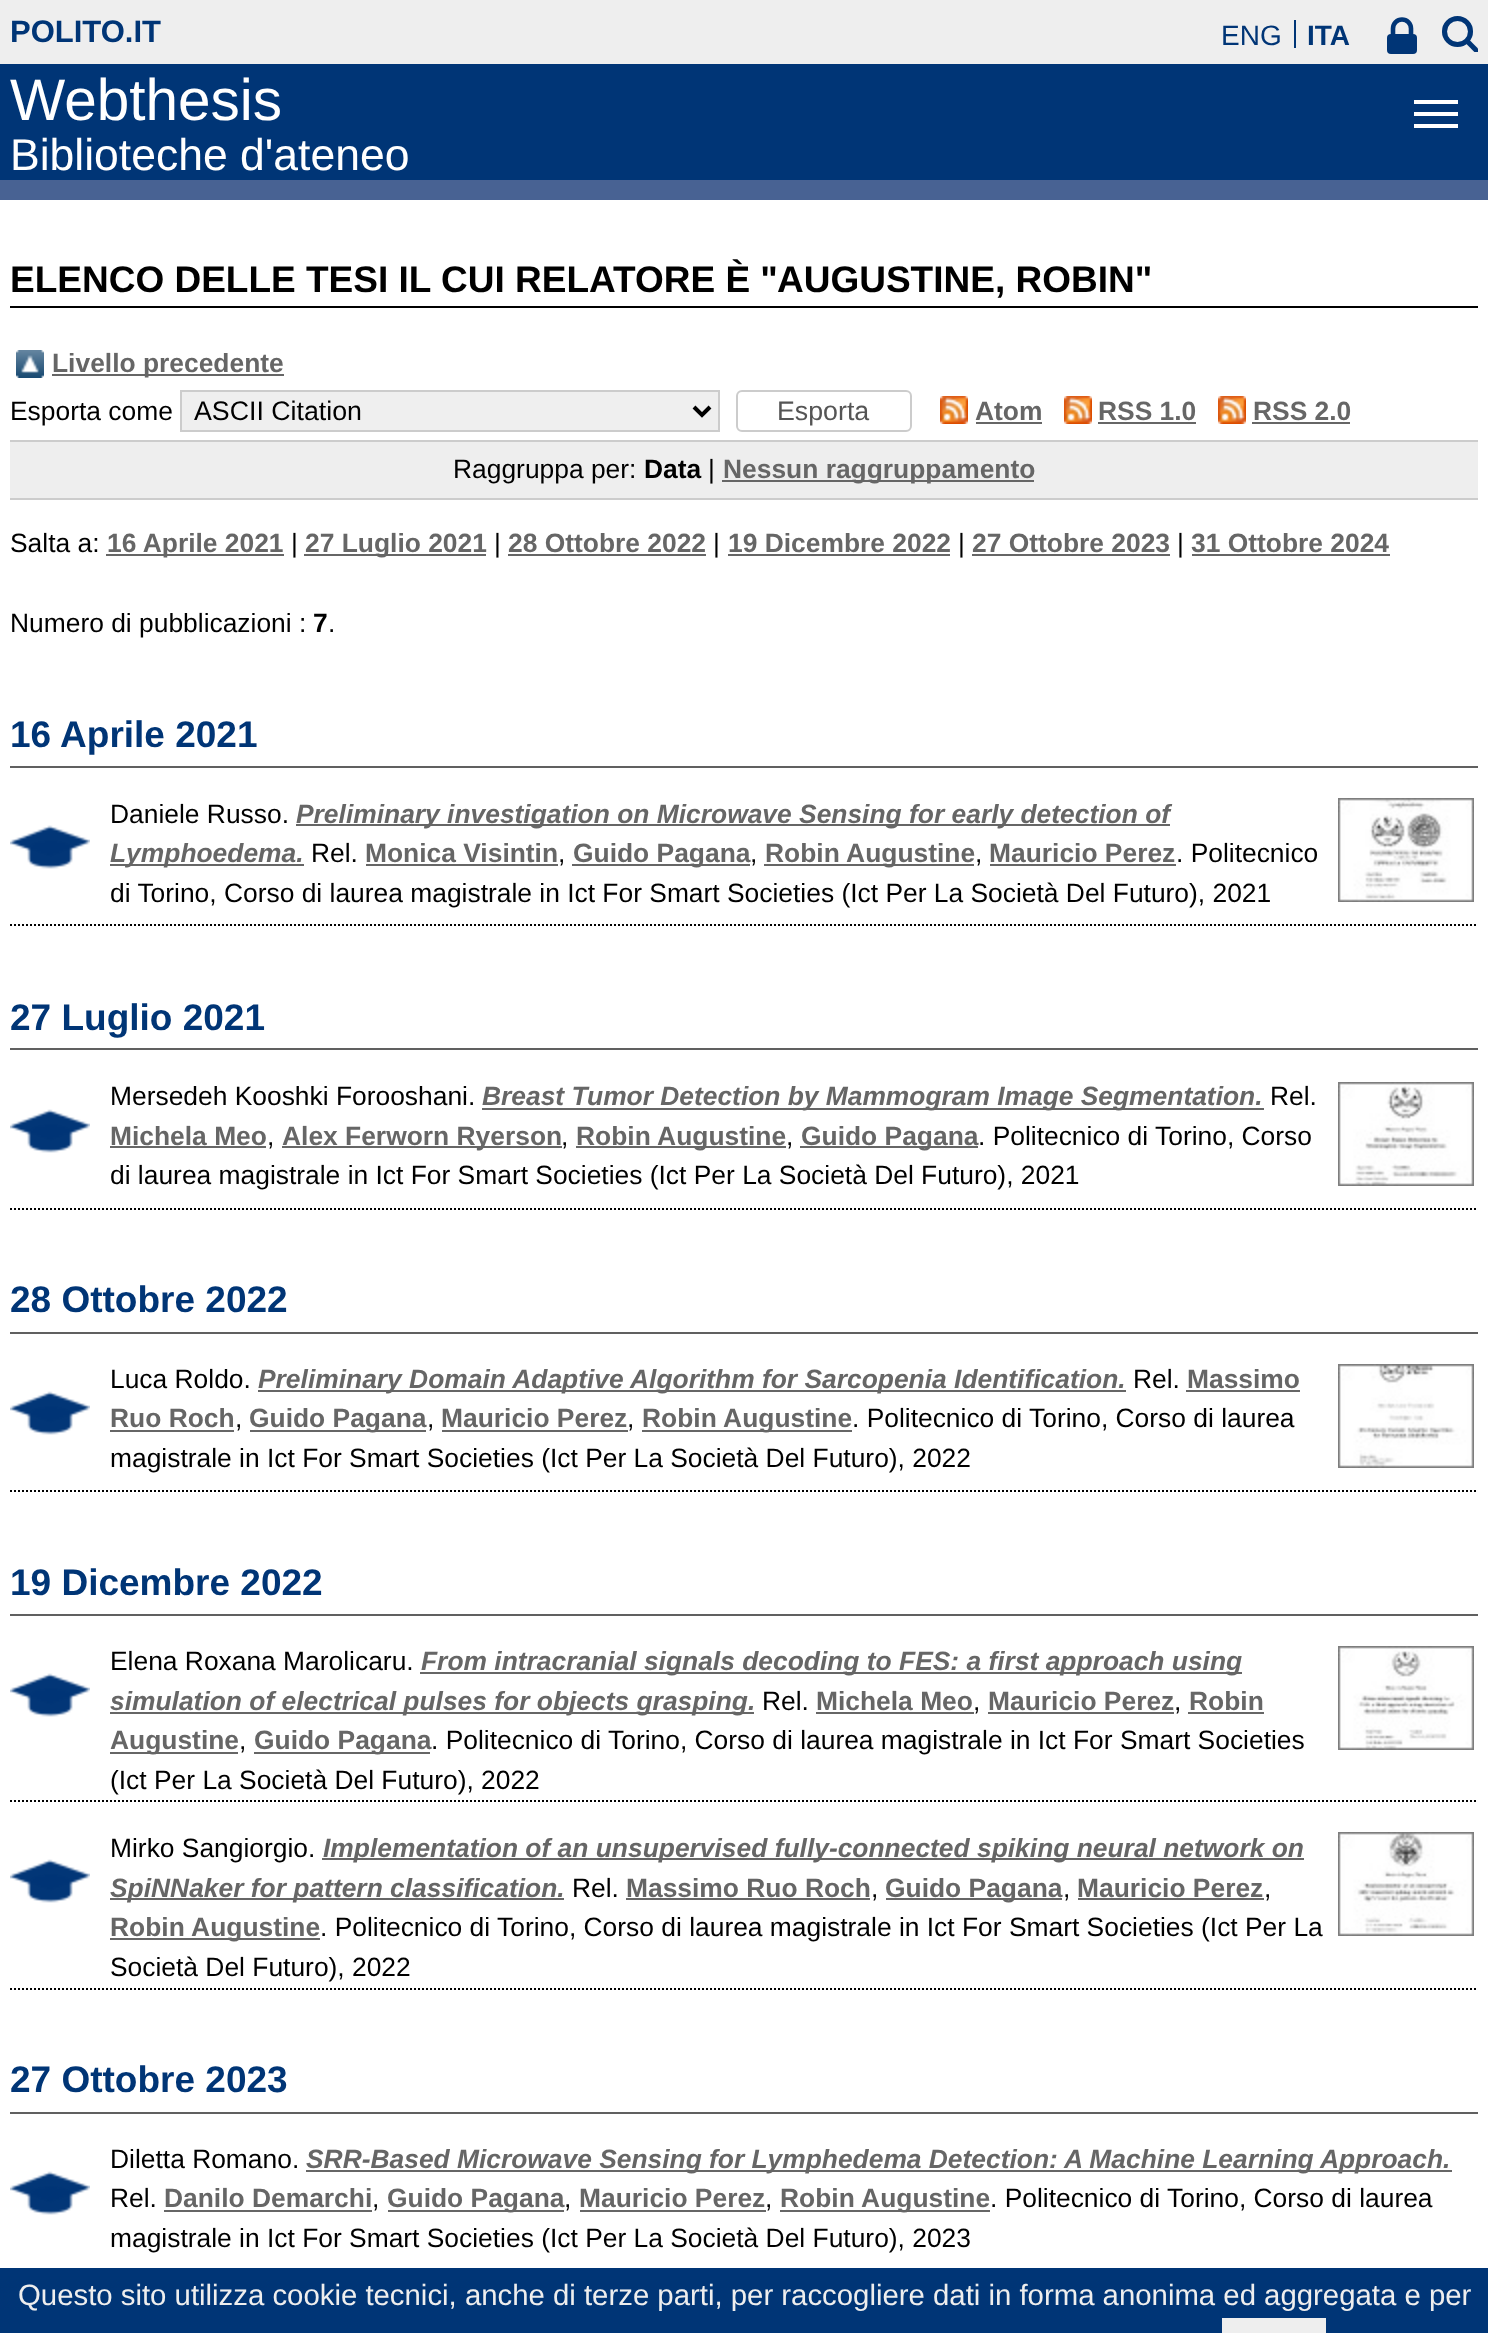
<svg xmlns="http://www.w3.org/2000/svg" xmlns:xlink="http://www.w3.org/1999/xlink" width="1488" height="2333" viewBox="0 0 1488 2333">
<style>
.cls-1{font:bold 31px Liberation Sans;fill:#003576}
.cls-2{font:28px Liberation Sans;fill:#003576}
.cls-3{font:bold 28px Liberation Sans;fill:#003576}
.cls-4{font:58.5px Liberation Sans;fill:#ffffff}
.cls-5{font:44.5px Liberation Sans;fill:#ffffff}
.cls-6{font:bold 37px Liberation Sans;fill:#000000}
.cls-7{font:bold 26.4px Liberation Sans;fill:#666666}
.cls-8{font:26.4px Liberation Sans;fill:#000000}
.cls-9{font:26.75px Liberation Sans;fill:#000000}
.cls-10{font:26.75px Liberation Sans;fill:#555555}
.cls-11{font:bold 26.4px Liberation Sans;fill:#000000}
.cls-12{font:bold 37px Liberation Sans;fill:#003576}
.cls-13{font:italic bold 26.4px Liberation Sans;fill:#666666}
.cls-14{font:29.35px Liberation Sans;fill:#eeeeee}
</style>
<defs>
<clipPath id="clip1"><rect x="1442" y="16" width="36" height="36"/></clipPath>
</defs>
<rect width="100%" height="100%" fill="#ffffff"/>
<rect fill="#eeeeee" x="0" y="0" width="1488" height="64"/>
<rect fill="#003576" x="1294" y="20" width="2" height="28"/>
<path fill="none" stroke="#003576" stroke-width="4.6" d="M1393 34V28.5C1393 23.5 1397 19.5 1402 19.5C1407 19.5 1411 23.5 1411 28.5V34"/>
<rect fill="#003576" x="1387" y="34" width="30" height="20" rx="4"/>
<circle fill="none" stroke="#003576" stroke-width="5.1" cx="1457.5" cy="31.5" r="13"/>
<g clip-path="url(#clip1)">
<path fill="none" stroke="#003576" stroke-width="5.1" d="M1467.5 41.5L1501 75"/>
</g>
<rect fill="#003576" x="0" y="64" width="1488" height="116"/>
<rect fill="#ffffff" x="1414" y="100" width="44" height="4"/>
<rect fill="#ffffff" x="1414" y="112" width="44" height="4"/>
<rect fill="#ffffff" x="1414" y="124" width="44" height="4"/>
<rect fill="#486293" x="0" y="180" width="1488" height="20"/>
<rect fill="#000000" x="10" y="306" width="1468" height="2"/>
<image xlink:href="image0.png" x="16" y="350" width="28" height="28"/>
<rect fill="#666666" x="52" y="374" width="232" height="2"/>
<rect fill="#efefef" stroke="#cccccc" stroke-width="2" x="181" y="391" width="538" height="40"/>
<path fill="none" stroke="#000000" stroke-width="4" d="M694 407L702 415L710 407"/>
<rect fill="none" stroke="#cccccc" stroke-width="2" x="737" y="391" width="174" height="40" rx="5"/>
<image xlink:href="image1.png" x="940" y="396" width="28" height="28"/>
<rect fill="#666666" x="976" y="422" width="66" height="2"/>
<image xlink:href="image1.png" x="1064" y="396" width="28" height="28"/>
<rect fill="#666666" x="1098" y="422" width="98" height="2"/>
<image xlink:href="image1.png" x="1218" y="396" width="28" height="28"/>
<rect fill="#666666" x="1252" y="422" width="98" height="2"/>
<rect fill="#eeeeee" x="10" y="442" width="1468" height="56"/>
<rect fill="#cccccc" x="10" y="440" width="1468" height="2"/>
<rect fill="#cccccc" x="10" y="498" width="1468" height="2"/>
<rect fill="#666666" x="722" y="480" width="312" height="2"/>
<rect fill="#666666" x="106" y="554" width="178" height="2"/>
<rect fill="#666666" x="304" y="554" width="182" height="2"/>
<rect fill="#666666" x="508" y="554" width="198" height="2"/>
<rect fill="#666666" x="728" y="554" width="222" height="2"/>
<rect fill="#666666" x="972" y="554" width="198" height="2"/>
<rect fill="#666666" x="1192" y="554" width="198" height="2"/>
<rect fill="#606060" x="10" y="766" width="1468" height="2"/>
<path fill="none" stroke="#000000" stroke-width="2" stroke-dasharray="2 2" d="M10 925H1478"/>
<rect fill="#666666" x="296" y="824" width="874" height="2"/>
<image xlink:href="image2.png" x="1338" y="798" width="136" height="104"/>
<image xlink:href="image3.png" x="10" y="825" width="80" height="44"/>
<rect fill="#666666" x="110" y="864" width="194" height="2"/>
<rect fill="#666666" x="366" y="864" width="192" height="2"/>
<rect fill="#666666" x="572" y="864" width="178" height="2"/>
<rect fill="#666666" x="764" y="864" width="210" height="2"/>
<rect fill="#666666" x="990" y="864" width="186" height="2"/>
<rect fill="#606060" x="10" y="1048" width="1468" height="2"/>
<path fill="none" stroke="#000000" stroke-width="2" stroke-dasharray="2 2" d="M10 1209H1478"/>
<rect fill="#666666" x="482" y="1108" width="782" height="2"/>
<image xlink:href="image4.png" x="1338" y="1082" width="136" height="104"/>
<image xlink:href="image3.png" x="10" y="1109" width="80" height="44"/>
<rect fill="#666666" x="110" y="1146" width="156" height="2"/>
<rect fill="#666666" x="282" y="1146" width="280" height="2"/>
<rect fill="#666666" x="576" y="1146" width="210" height="2"/>
<rect fill="#666666" x="800" y="1146" width="178" height="2"/>
<rect fill="#606060" x="10" y="1332" width="1468" height="2"/>
<path fill="none" stroke="#000000" stroke-width="2" stroke-dasharray="2 2" d="M10 1491H1478"/>
<rect fill="#666666" x="258" y="1390" width="868" height="2"/>
<rect fill="#666666" x="1186" y="1390" width="114" height="2"/>
<image xlink:href="image5.png" x="1338" y="1364" width="136" height="104"/>
<image xlink:href="image3.png" x="10" y="1391" width="80" height="44"/>
<rect fill="#666666" x="110" y="1430" width="124" height="2"/>
<rect fill="#666666" x="250" y="1430" width="176" height="2"/>
<rect fill="#666666" x="442" y="1430" width="186" height="2"/>
<rect fill="#666666" x="642" y="1430" width="210" height="2"/>
<rect fill="#606060" x="10" y="1614" width="1468" height="2"/>
<path fill="none" stroke="#000000" stroke-width="2" stroke-dasharray="2 2" d="M10 1801H1478"/>
<rect fill="#666666" x="420" y="1672" width="822" height="2"/>
<image xlink:href="image6.png" x="1338" y="1646" width="136" height="104"/>
<image xlink:href="image3.png" x="10" y="1673" width="80" height="44"/>
<rect fill="#666666" x="110" y="1712" width="644" height="2"/>
<rect fill="#666666" x="816" y="1712" width="158" height="2"/>
<rect fill="#666666" x="988" y="1712" width="186" height="2"/>
<rect fill="#666666" x="1188" y="1712" width="76" height="2"/>
<rect fill="#666666" x="110" y="1752" width="128" height="2"/>
<rect fill="#666666" x="254" y="1752" width="176" height="2"/>
<path fill="none" stroke="#000000" stroke-width="2" stroke-dasharray="2 2" d="M10 1989H1478"/>
<rect fill="#666666" x="322" y="1858" width="982" height="2"/>
<image xlink:href="image7.png" x="1338" y="1832" width="136" height="104"/>
<image xlink:href="image3.png" x="10" y="1859" width="80" height="44"/>
<rect fill="#666666" x="110" y="1898" width="454" height="2"/>
<rect fill="#666666" x="626" y="1898" width="244" height="2"/>
<rect fill="#666666" x="886" y="1898" width="176" height="2"/>
<rect fill="#666666" x="1078" y="1898" width="186" height="2"/>
<rect fill="#666666" x="110" y="1938" width="210" height="2"/>
<rect fill="#606060" x="10" y="2112" width="1468" height="2"/>
<rect fill="#666666" x="306" y="2170" width="1146" height="2"/>
<image xlink:href="image3.png" x="10" y="2171" width="80" height="44"/>
<rect fill="#666666" x="164" y="2210" width="208" height="2"/>
<rect fill="#666666" x="388" y="2210" width="176" height="2"/>
<rect fill="#666666" x="580" y="2210" width="186" height="2"/>
<rect fill="#666666" x="780" y="2210" width="210" height="2"/>
<rect fill="#003576" x="0" y="2268" width="1488" height="65"/>
<rect fill="#eeeeee" x="1222" y="2318" width="104" height="15"/>
<text class="cls-1" x="10" y="42">POLITO.IT</text>
<text class="cls-2" x="1221" y="45">ENG</text>
<text class="cls-3" x="1307" y="45">ITA</text>
<text class="cls-4" x="10" y="120">Webthesis</text>
<text class="cls-5" x="10" y="170">Biblioteche d'ateneo</text>
<text class="cls-6" x="10" y="292">ELENCO DELLE TESI IL CUI RELATORE È "</text>
<text class="cls-6" x="777" y="292">AUGUSTINE, ROBIN"</text>
<text class="cls-7" x="52" y="372">Livello precedente</text>
<text class="cls-8" x="10" y="420">Esporta come</text>
<text class="cls-9" x="194" y="420">ASCII Citation</text>
<text class="cls-10" x="777" y="420">Esporta</text>
<text class="cls-7" x="975" y="420">Atom</text>
<text class="cls-7" x="1098" y="420">RSS 1.0</text>
<text class="cls-7" x="1253" y="420">RSS 2.0</text>
<text class="cls-8" x="453" y="478">Raggruppa per:</text>
<text class="cls-11" x="644" y="478">Data</text>
<text class="cls-8" x="708" y="478">|</text>
<text class="cls-7" x="723" y="478">Nessun raggruppamento</text>
<text class="cls-8" x="10" y="552">Salta a:</text>
<text class="cls-7" x="107" y="552">16 Aprile 2021</text>
<text class="cls-8" x="291" y="552">|</text>
<text class="cls-7" x="305" y="552">27 Luglio 2021</text>
<text class="cls-8" x="494" y="552">|</text>
<text class="cls-7" x="508" y="552">28 Ottobre 2022</text>
<text class="cls-8" x="713" y="552">|</text>
<text class="cls-7" x="728" y="552">19 Dicembre 2022</text>
<text class="cls-8" x="958" y="552">|</text>
<text class="cls-7" x="972" y="552">27 Ottobre 2023</text>
<text class="cls-8" x="1177" y="552">|</text>
<text class="cls-7" x="1191" y="552">31 Ottobre 2024</text>
<text class="cls-8" x="10" y="632">Numero di pubblicazioni :</text>
<text class="cls-11" x="313" y="632">7</text>
<text class="cls-8" x="328" y="632">.</text>
<text class="cls-12" x="10" y="747">16 Aprile 2021</text>
<text class="cls-8" x="110" y="823">Daniele Russo.</text>
<text class="cls-13" x="296" y="823">Preliminary investigation on Microwave Sensing for early detection of</text>
<text class="cls-13" x="110" y="862">Lymphoedema.</text>
<text class="cls-8" x="311" y="862">Rel.</text>
<text class="cls-7" x="365" y="862">Monica Visintin</text>
<text class="cls-8" x="558" y="862">,</text>
<text class="cls-7" x="573" y="862">Guido Pagana</text>
<text class="cls-8" x="750" y="862">,</text>
<text class="cls-7" x="765" y="862">Robin Augustine</text>
<text class="cls-8" x="975" y="862">,</text>
<text class="cls-7" x="989" y="862">Mauricio Perez</text>
<text class="cls-8" x="1176" y="862">. Politecnico</text>
<text class="cls-8" x="110" y="902">di Torino, Corso di laurea magistrale in Ict For Smart Societies (Ict Per La Società Del Futuro), 2021</text>
<text class="cls-12" x="10" y="1030">27 Luglio 2021</text>
<text class="cls-8" x="110" y="1105">Mersedeh Kooshki Forooshani.</text>
<text class="cls-13" x="482" y="1105" word-spacing="-0.1">Breast Tumor Detection by Mammogram Image Segmentation.</text>
<text class="cls-8" x="1270" y="1105">Rel.</text>
<text class="cls-7" x="110" y="1145">Michela Meo</text>
<text class="cls-8" x="267" y="1145">,</text>
<text class="cls-7" x="282" y="1145">Alex Ferworn Ryerson</text>
<text class="cls-8" x="561" y="1145">,</text>
<text class="cls-7" x="576" y="1145">Robin Augustine</text>
<text class="cls-8" x="786" y="1145">,</text>
<text class="cls-7" x="801" y="1145">Guido Pagana</text>
<text class="cls-8" x="978" y="1145">. Politecnico di Torino, Corso</text>
<text class="cls-8" x="110" y="1184">di laurea magistrale in Ict For Smart Societies (Ict Per La Società Del Futuro), 2021</text>
<text class="cls-12" x="10" y="1312">28 Ottobre 2022</text>
<text class="cls-8" x="110" y="1388">Luca Roldo.</text>
<text class="cls-13" x="258" y="1388">Preliminary Domain Adaptive Algorithm for Sarcopenia Identification.</text>
<text class="cls-8" x="1133" y="1388">Rel.</text>
<text class="cls-7" x="1187" y="1388">Massimo</text>
<text class="cls-7" x="110" y="1427">Ruo Roch</text>
<text class="cls-8" x="235" y="1427">,</text>
<text class="cls-7" x="249" y="1427">Guido Pagana</text>
<text class="cls-8" x="427" y="1427">,</text>
<text class="cls-7" x="441" y="1427">Mauricio Perez</text>
<text class="cls-8" x="627" y="1427">,</text>
<text class="cls-7" x="642" y="1427">Robin Augustine</text>
<text class="cls-8" x="852" y="1427">. Politecnico di Torino, Corso di laurea</text>
<text class="cls-8" x="110" y="1467">magistrale in Ict For Smart Societies (Ict Per La Società Del Futuro), 2022</text>
<text class="cls-12" x="10" y="1595">19 Dicembre 2022</text>
<text class="cls-8" x="110" y="1670">Elena Roxana Marolicaru.</text>
<text class="cls-13" x="421" y="1670">From intracranial signals decoding to FES: a first approach using</text>
<text class="cls-13" x="110" y="1710">simulation of electrical pulses for objects grasping.</text>
<text class="cls-8" x="762" y="1710">Rel.</text>
<text class="cls-7" x="816" y="1710">Michela Meo</text>
<text class="cls-8" x="973" y="1710">,</text>
<text class="cls-7" x="988" y="1710">Mauricio Perez</text>
<text class="cls-8" x="1174" y="1710">,</text>
<text class="cls-7" x="1189" y="1710">Robin</text>
<text class="cls-7" x="110" y="1749">Augustine</text>
<text class="cls-8" x="239" y="1749">,</text>
<text class="cls-7" x="254" y="1749">Guido Pagana</text>
<text class="cls-8" x="431" y="1749">. Politecnico di Torino, Corso di laurea magistrale in Ict For Smart Societies</text>
<text class="cls-8" x="110" y="1789">(Ict Per La Società Del Futuro), 2022</text>
<text class="cls-8" x="110" y="1857">Mirko Sangiorgio.</text>
<text class="cls-13" x="323" y="1857">Implementation of an unsupervised fully-connected spiking neural network on</text>
<text class="cls-13" x="110" y="1897">SpiNNaker for pattern classification.</text>
<text class="cls-8" x="572" y="1897">Rel.</text>
<text class="cls-7" x="626" y="1897">Massimo Ruo Roch</text>
<text class="cls-8" x="871" y="1897">,</text>
<text class="cls-7" x="885" y="1897">Guido Pagana</text>
<text class="cls-8" x="1063" y="1897">,</text>
<text class="cls-7" x="1077" y="1897">Mauricio Perez</text>
<text class="cls-8" x="1264" y="1897">,</text>
<text class="cls-7" x="110" y="1936">Robin Augustine</text>
<text class="cls-8" x="320" y="1936">. Politecnico di Torino, Corso di laurea magistrale in Ict For Smart Societies (Ict Per La</text>
<text class="cls-8" x="110" y="1976">Società Del Futuro), 2022</text>
<text class="cls-12" x="10" y="2092">27 Ottobre 2023</text>
<text class="cls-8" x="110" y="2168">Diletta Romano.</text>
<text class="cls-13" x="306" y="2168" word-spacing="-0.1">SRR-Based Microwave Sensing for Lymphedema Detection: A Machine Learning Approach.</text>
<text class="cls-8" x="110" y="2207">Rel.</text>
<text class="cls-7" x="164" y="2207">Danilo Demarchi</text>
<text class="cls-8" x="372" y="2207">,</text>
<text class="cls-7" x="387" y="2207">Guido Pagana</text>
<text class="cls-8" x="564" y="2207">,</text>
<text class="cls-7" x="579" y="2207">Mauricio Perez</text>
<text class="cls-8" x="765" y="2207">,</text>
<text class="cls-7" x="780" y="2207">Robin Augustine</text>
<text class="cls-8" x="990" y="2207">. Politecnico di Torino, Corso di laurea</text>
<text class="cls-8" x="110" y="2247">magistrale in Ict For Smart Societies (Ict Per La Società Del Futuro), 2023</text>
<text class="cls-14" x="18" y="2305">Questo sito utilizza cookie tecnici, anche di terze parti, per raccogliere dati in forma anonima ed aggregata e per</text>
</svg>
